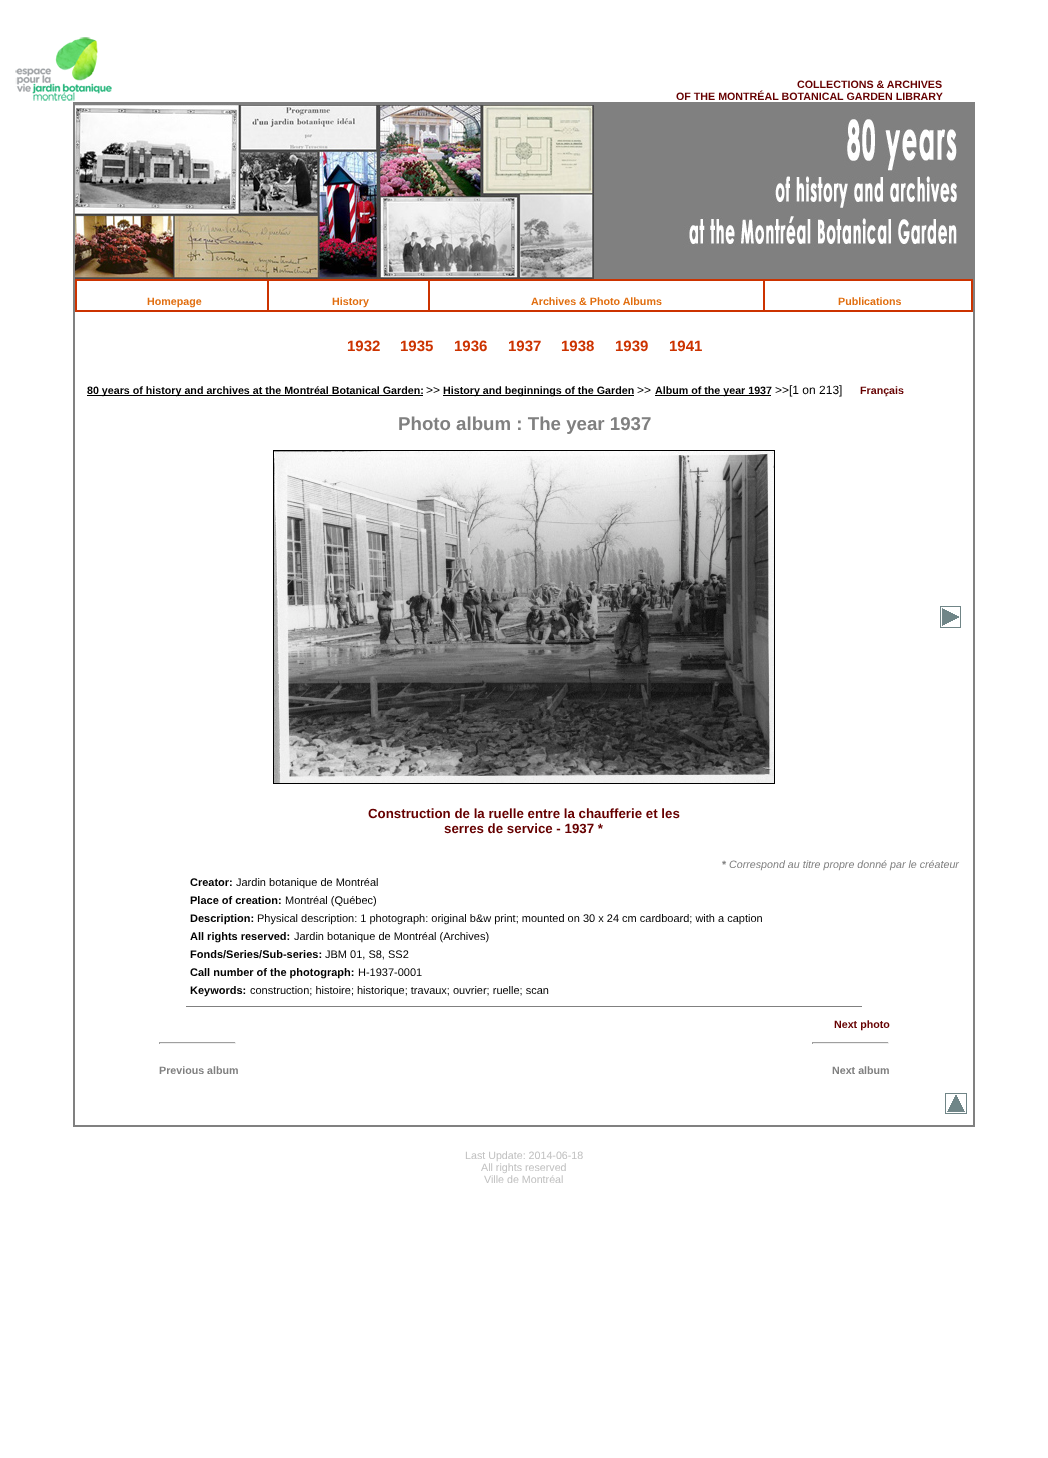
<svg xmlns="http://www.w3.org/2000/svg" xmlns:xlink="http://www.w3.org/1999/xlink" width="1048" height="1458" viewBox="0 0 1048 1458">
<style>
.cls-1{font:bold 10.7px Liberation Sans;fill:#660000}
.cls-2{font:bold 10.7px Liberation Sans;fill:#e16e10}
.cls-3{font:bold 15px Liberation Sans;fill:#cc3300}
.cls-4{font:bold 10.7px Liberation Sans;fill:#000000}
.cls-5{font:12px Liberation Sans;fill:#000000}
.cls-6{font:bold 18.7px Liberation Sans;fill:#808080}
.cls-7{font:bold 13.3px Liberation Sans;fill:#660000}
.cls-8{font:bold 10.7px Liberation Sans;fill:#808080}
.cls-9{font:italic 10.7px Liberation Sans;fill:#808080}
.cls-10{font:bold 11px Liberation Sans;fill:#000000}
.cls-11{font:11px Liberation Sans;fill:#000000}
.cls-12{font:10.7px Liberation Sans;fill:#c0c0c0}
</style>
<rect width="100%" height="100%" fill="#ffffff"/>
<image xlink:href="image0.png" x="15" y="37" width="97" height="64"/>
<rect fill="#808080" x="73" y="102" width="902" height="1025"/>
<image xlink:href="image1.png" x="75" y="104" width="882" height="175"/>
<rect fill="#ffffff" x="75" y="281" width="898" height="844"/>
<rect fill="none" stroke="#cc3300" x="75.5" y="279.5" width="897" height="32"/>
<rect fill="none" stroke="#cc3300" x="76.5" y="280.5" width="191" height="30"/>
<rect fill="none" stroke="#cc3300" x="268.5" y="280.5" width="160" height="30"/>
<rect fill="none" stroke="#cc3300" x="429.5" y="280.5" width="334" height="30"/>
<rect fill="none" stroke="#cc3300" x="764.5" y="280.5" width="207" height="30"/>
<rect fill="#000000" x="87" y="395" width="336" height="1"/>
<rect fill="#000000" x="443" y="395" width="191" height="1"/>
<rect fill="#000000" x="655" y="395" width="116" height="1"/>
<rect fill="none" stroke="#000000" x="273.5" y="450.5" width="501" height="333"/>
<image xlink:href="image2.png" x="274" y="451" width="500" height="332"/>
<image xlink:href="image3.png" x="940" y="606" width="21" height="22"/>
<rect fill="#808080" x="186" y="1006" width="676" height="1"/>
<rect fill="#9f9f9f" x="159" y="1042" width="77" height="1"/>
<rect fill="#eeeeee" x="235" y="1042" width="1" height="2"/>
<rect fill="#eeeeee" x="159" y="1043" width="77" height="1"/>
<rect fill="#9f9f9f" x="159" y="1042" width="1" height="2"/>
<rect fill="#9f9f9f" x="812" y="1042" width="77" height="1"/>
<rect fill="#eeeeee" x="888" y="1042" width="1" height="2"/>
<rect fill="#eeeeee" x="812" y="1043" width="77" height="1"/>
<rect fill="#9f9f9f" x="812" y="1042" width="1" height="2"/>
<image xlink:href="image4.png" x="945" y="1093" width="22" height="21"/>
<text class="cls-1" x="797" y="88">COLLECTIONS &amp; ARCHIVES</text>
<text class="cls-1" x="676" y="100">OF THE MONTRÉAL BOTANICAL GARDEN LIBRARY</text>
<text class="cls-2" x="147" y="305">Homepage</text>
<text class="cls-2" x="332" y="305">History</text>
<text class="cls-2" x="531" y="305">Archives &amp; Photo Albums</text>
<text class="cls-2" x="838" y="305">Publications</text>
<text class="cls-3" x="347" y="351">1932</text>
<text class="cls-3" x="400" y="351">1935</text>
<text class="cls-3" x="454" y="351">1936</text>
<text class="cls-3" x="508" y="351">1937</text>
<text class="cls-3" x="561" y="351">1938</text>
<text class="cls-3" x="615" y="351">1939</text>
<text class="cls-3" x="669" y="351">1941</text>
<text class="cls-4" x="87" y="394">80 years of history and archives at the Montréal Botanical Garden:</text>
<text class="cls-5" x="426" y="394">&gt;&gt;</text>
<text class="cls-4" x="443" y="394">History and beginnings of the Garden</text>
<text class="cls-5" x="637" y="394">&gt;&gt;</text>
<text class="cls-4" x="655" y="394">Album of the year 1937</text>
<text class="cls-5" x="775" y="394">&gt;&gt;[1 on 213]</text>
<text class="cls-1" x="860" y="394">Français</text>
<text class="cls-6" x="398" y="430">Photo album : The year 1937</text>
<text class="cls-7" x="368" y="818">Construction de la ruelle entre la chaufferie et les</text>
<text class="cls-7" x="444" y="833">serres de service - 1937 *</text>
<text class="cls-8" x="722" y="868">*</text>
<text class="cls-9" x="729" y="868">Correspond au titre propre donné par le créateur</text>
<text class="cls-10" x="190" y="886">Creator:</text>
<text class="cls-11" x="236" y="886">Jardin botanique de Montréal</text>
<text class="cls-10" x="190" y="904">Place of creation:</text>
<text class="cls-11" x="285" y="904">Montréal (Québec)</text>
<text class="cls-10" x="190" y="922">Description:</text>
<text class="cls-11" x="257" y="922">Physical description: 1 photograph: original b&amp;w print; mounted on 30 x 24 cm cardboard; with a caption</text>
<text class="cls-10" x="190" y="940">All rights reserved:</text>
<text class="cls-11" x="294" y="940">Jardin botanique de Montréal (Archives)</text>
<text class="cls-10" x="190" y="958">Fonds/Series/Sub-series:</text>
<text class="cls-11" x="325" y="958">JBM 01, S8, SS2</text>
<text class="cls-10" x="190" y="976">Call number of the photograph:</text>
<text class="cls-11" x="358" y="976">H-1937-0001</text>
<text class="cls-10" x="190" y="994">Keywords:</text>
<text class="cls-11" x="250" y="994">construction; histoire; historique; travaux; ouvrier; ruelle; scan</text>
<text class="cls-1" x="834" y="1028">Next photo</text>
<text class="cls-8" x="159" y="1074">Previous album</text>
<text class="cls-8" x="832" y="1074">Next album</text>
<text class="cls-12" x="465" y="1159">Last Update: 2014-06-18</text>
<text class="cls-12" x="481" y="1171">All rights reserved</text>
<text class="cls-12" x="484" y="1183">Ville de Montréal</text>
</svg>
